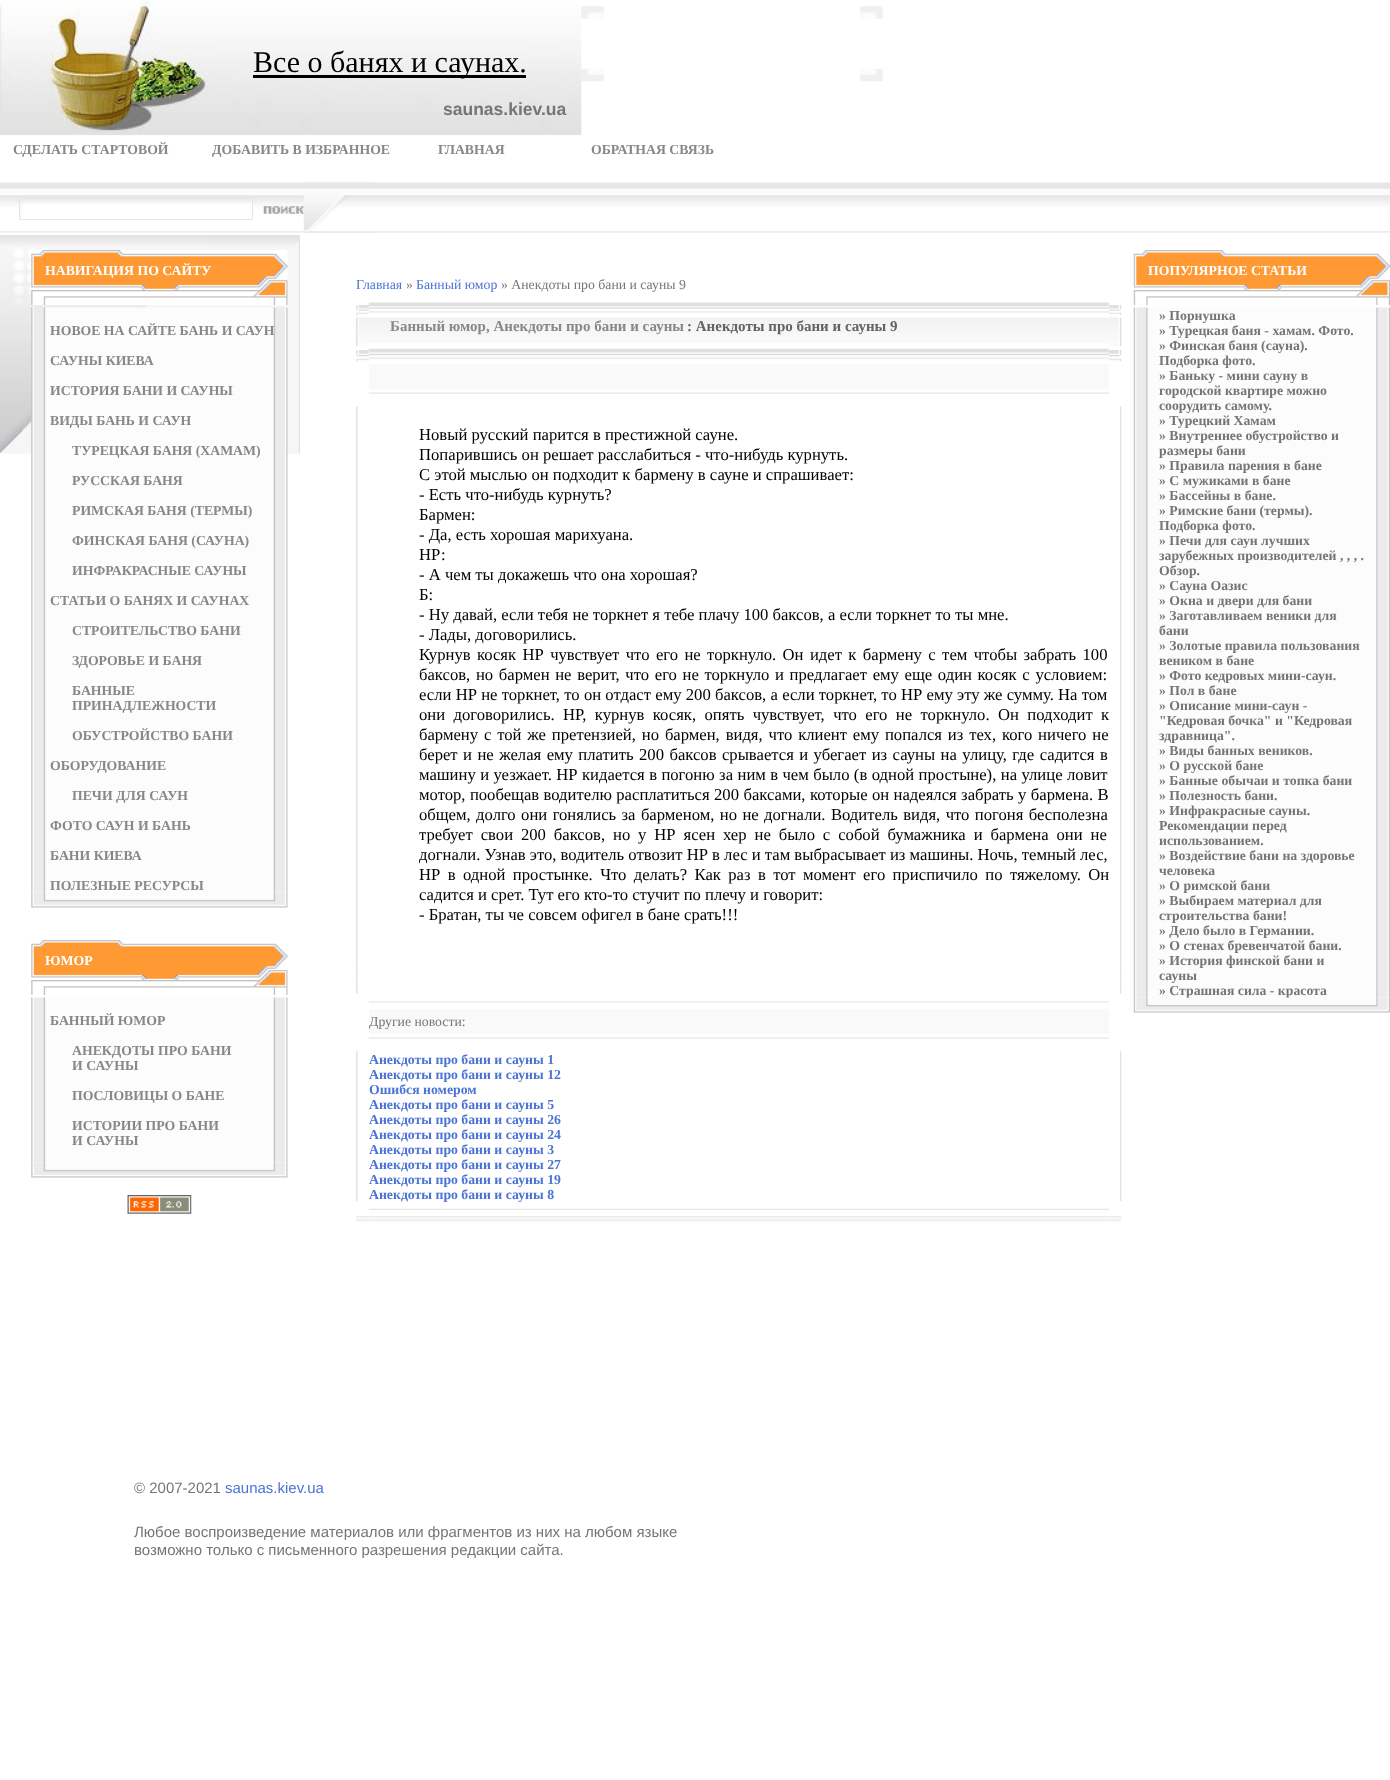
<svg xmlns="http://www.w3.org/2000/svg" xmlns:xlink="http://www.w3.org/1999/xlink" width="1390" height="1780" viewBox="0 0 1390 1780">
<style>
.cls-1{font:30px Liberation Serif;fill:#000000}
.cls-2{font:bold 17.5px Liberation Sans;fill:#757575}
.cls-3{font:bold 13.75px Liberation Serif;fill:#888888}
.cls-4{font:bold 13.75px Liberation Serif;fill:#ffffff}
.cls-5{font:13.75px Liberation Serif;fill:#4b73d4}
.cls-6{font:13.75px Liberation Serif;fill:#757575}
.cls-7{font:bold 15px Liberation Serif;fill:#888888}
.cls-8{font:bold 15px Liberation Serif;fill:#636363}
.cls-9{font:16.65px Liberation Serif;fill:#000000}
.cls-10{font:bold 13.75px Liberation Serif;fill:#4b73d4}
.cls-11{font:bold 13.75px Liberation Serif;fill:#757575}
.cls-12{font:15px Liberation Sans;fill:#757575}
.cls-13{font:15px Liberation Sans;fill:#4b73d4}
</style>
<rect width="100%" height="100%" fill="#ffffff"/>
<image xlink:href="image2.png" x="0" y="0" width="582" height="137"/>
<image xlink:href="image0.png" x="581" y="6" width="23" height="13"/>
<image xlink:href="image1.png" x="860" y="6" width="23" height="13"/>
<rect fill="#000000" x="253" y="75" width="273" height="3"/>
<image xlink:href="image3.png" x="581" y="68" width="23" height="14"/>
<image xlink:href="image4.png" x="860" y="68" width="23" height="14"/>
<image xlink:href="image5.png" x="0" y="182" width="1390" height="51"/>
<image xlink:href="image6.png" x="20" y="199" width="232" height="20"/>
<rect fill="none" stroke="#e6e6e6" x="19.5" y="198.5" width="233" height="21"/>
<image xlink:href="image7.png" x="263" y="206" width="41" height="8"/>
<image xlink:href="image8.png" x="303" y="182" width="72" height="51"/>
<image xlink:href="image9.png" x="0" y="235" width="300" height="219"/>
<image xlink:href="image10.png" x="31" y="250" width="257" height="40"/>
<image xlink:href="image11.png" x="31" y="290" width="257" height="15"/>
<image xlink:href="image12.png" x="31" y="307" width="257" height="586"/>
<image xlink:href="image13.png" x="31" y="892" width="257" height="16"/>
<image xlink:href="image14.png" x="31" y="940" width="257" height="40"/>
<image xlink:href="image15.png" x="31" y="980" width="257" height="15"/>
<image xlink:href="image16.png" x="31" y="997" width="257" height="166"/>
<image xlink:href="image13.png" x="31" y="1162" width="257" height="16"/>
<image xlink:href="image17.png" x="127" y="1195" width="65" height="19"/>
<image xlink:href="image19.png" x="368" y="302" width="741" height="11"/>
<image xlink:href="image18.png" x="356" y="305" width="13" height="10"/>
<image xlink:href="image20.png" x="1108" y="305" width="14" height="10"/>
<image xlink:href="image21.png" x="356" y="317" width="13" height="30"/>
<image xlink:href="image22.png" x="369" y="317" width="740" height="26"/>
<image xlink:href="image23.png" x="1109" y="317" width="13" height="30"/>
<image xlink:href="image25.png" x="368" y="348" width="741" height="11"/>
<image xlink:href="image24.png" x="356" y="350" width="13" height="12"/>
<image xlink:href="image26.png" x="1108" y="350" width="14" height="12"/>
<rect fill="#f9f9f9" x="369" y="364" width="740" height="25"/>
<image xlink:href="image27.png" x="368" y="392" width="741" height="2"/>
<image xlink:href="image28.png" x="356" y="406" width="2" height="539"/>
<image xlink:href="image29.png" x="1120" y="406" width="2" height="539"/>
<image xlink:href="image30.png" x="356" y="945" width="2" height="19"/>
<image xlink:href="image31.png" x="1120" y="945" width="2" height="19"/>
<image xlink:href="image32.png" x="356" y="964" width="2" height="15"/>
<image xlink:href="image33.png" x="1120" y="964" width="2" height="15"/>
<image xlink:href="image32.png" x="356" y="979" width="2" height="15"/>
<image xlink:href="image33.png" x="1120" y="979" width="2" height="15"/>
<image xlink:href="image34.png" x="368" y="1001" width="741" height="2"/>
<rect fill="#f9f9f9" x="369" y="1009" width="740" height="25"/>
<image xlink:href="image27.png" x="368" y="1037" width="741" height="2"/>
<image xlink:href="image35.png" x="356" y="1051" width="2" height="151"/>
<image xlink:href="image36.png" x="1120" y="1051" width="2" height="151"/>
<image xlink:href="image37.png" x="368" y="1208" width="741" height="2"/>
<image xlink:href="image39.png" x="368" y="1216" width="741" height="6"/>
<image xlink:href="image38.png" x="356" y="1216" width="13" height="6"/>
<image xlink:href="image40.png" x="1109" y="1216" width="13" height="6"/>
<image xlink:href="image41.png" x="1133" y="250" width="257" height="40"/>
<image xlink:href="image42.png" x="1133" y="290" width="257" height="15"/>
<image xlink:href="image43.png" x="1133" y="307" width="257" height="691"/>
<text class="cls-1" x="253" y="72">Все о банях и саунах.</text>
<text class="cls-2" x="443" y="115">saunas.kiev.ua</text>
<text class="cls-3" x="13" y="154">СДЕЛАТЬ СТАРТОВОЙ</text>
<text class="cls-3" x="212" y="154">ДОБАВИТЬ В ИЗБРАННОЕ</text>
<text class="cls-3" x="438" y="154">ГЛАВНАЯ</text>
<text class="cls-3" x="591" y="154">ОБРАТНАЯ СВЯЗЬ</text>
<text class="cls-4" x="45" y="275">НАВИГАЦИЯ ПО САЙТУ</text>
<text class="cls-3" x="50" y="335">НОВОЕ НА САЙТЕ БАНЬ И САУН</text>
<text class="cls-3" x="50" y="365">САУНЫ КИЕВА</text>
<text class="cls-3" x="50" y="395">ИСТОРИЯ БАНИ И САУНЫ</text>
<text class="cls-3" x="50" y="425">ВИДЫ БАНЬ И САУН</text>
<text class="cls-3" x="72" y="455">ТУРЕЦКАЯ БАНЯ (ХАМАМ)</text>
<text class="cls-3" x="72" y="485">РУССКАЯ БАНЯ</text>
<text class="cls-3" x="72" y="515">РИМСКАЯ БАНЯ (ТЕРМЫ)</text>
<text class="cls-3" x="72" y="545">ФИНСКАЯ БАНЯ (САУНА)</text>
<text class="cls-3" x="72" y="575">ИНФРАКРАСНЫЕ САУНЫ</text>
<text class="cls-3" x="50" y="605">СТАТЬИ О БАНЯХ И САУНАХ</text>
<text class="cls-3" x="72" y="635">СТРОИТЕЛЬСТВО БАНИ</text>
<text class="cls-3" x="72" y="665">ЗДОРОВЬЕ И БАНЯ</text>
<text class="cls-3"><tspan x="72" y="695">БАННЫЕ</tspan><tspan x="72" y="710">ПРИНАДЛЕЖНОСТИ</tspan></text>
<text class="cls-3" x="72" y="740">ОБУСТРОЙСТВО БАНИ</text>
<text class="cls-3" x="50" y="770">ОБОРУДОВАНИЕ</text>
<text class="cls-3" x="72" y="800">ПЕЧИ ДЛЯ САУН</text>
<text class="cls-3" x="50" y="830">ФОТО САУН И БАНЬ</text>
<text class="cls-3" x="50" y="860">БАНИ КИЕВА</text>
<text class="cls-3" x="50" y="890">ПОЛЕЗНЫЕ РЕСУРСЫ</text>
<text class="cls-4" x="45" y="965">ЮМОР</text>
<text class="cls-3" x="50" y="1025">БАННЫЙ ЮМОР</text>
<text class="cls-3"><tspan x="72" y="1055">АНЕКДОТЫ ПРО БАНИ</tspan><tspan x="72" y="1070">И САУНЫ</tspan></text>
<text class="cls-3" x="72" y="1100">ПОСЛОВИЦЫ О БАНЕ</text>
<text class="cls-3"><tspan x="72" y="1130">ИСТОРИИ ПРО БАНИ</tspan><tspan x="72" y="1145">И САУНЫ</tspan></text>
<text class="cls-5" x="356" y="289">Главная</text>
<text class="cls-6" x="406" y="289">»</text>
<text class="cls-5" x="416" y="289">Банный юмор</text>
<text class="cls-6" x="501" y="289">» Анекдоты про бани и сауны 9</text>
<text class="cls-7" x="390" y="331">Банный юмор, Анекдоты про бани и сауны</text>
<text class="cls-8" x="687" y="331">: Анекдоты про бани и сауны 9</text>
<text class="cls-9"><tspan x="419" y="440">Новый русский парится в престижной сауне.</tspan><tspan x="419" y="460">Попарившись он решает расслабиться - что-нибудь курнуть.</tspan><tspan x="419" y="480">С этой мыслью он подходит к бармену в сауне и спрашивает:</tspan><tspan x="419" y="500">- Есть что-нибудь курнуть?</tspan><tspan x="419" y="520">Бармен:</tspan><tspan x="419" y="540">- Да, есть хорошая марихуана.</tspan><tspan x="419" y="560">НР:</tspan><tspan x="419" y="580">- А чем ты докажешь что она хорошая?</tspan><tspan x="419" y="600">Б:</tspan><tspan x="419" y="620">- Ну давай, если тебя не торкнет я тебе плачу 100 баксов, а если торкнет то ты мне.</tspan><tspan x="419" y="640">- Лады, договорились.</tspan><tspan x="419" y="660" word-spacing="2.25">Курнув косяк НР чувствует что его не торкнуло. Он идет к бармену с тем чтобы забрать 100</tspan><tspan x="419" y="680" word-spacing="1.5">баксов, но бармен не верит, что его не торкнуло и предлагает ему еще один косяк с условием:</tspan><tspan x="419" y="700" word-spacing="0.1">если НР не торкнет, то он отдаст ему 200 баксов, а если торкнет, то НР ему эту же сумму. На том</tspan><tspan x="419" y="720" word-spacing="4.25">они договорились. НР, курнув косяк, опять чувствует, что его не торкнуло. Он подходит к</tspan><tspan x="419" y="740" word-spacing="1.7">бармену с той же претензией, но бармен, видя, что клиент ему попался из тех, кого ничего не</tspan><tspan x="419" y="760" word-spacing="1.3">берет и не желая ему платить 200 баксов срывается и убегает из сауны на улицу, где садится в</tspan><tspan x="419" y="780" word-spacing="0.25">машину и уезжает. НР кидается в погоню за ним в чем было (в одной простыне), на улице ловит</tspan><tspan x="419" y="800" word-spacing="0.25">мотор, пообещав водителю расплатиться 200 баксами, которые он надеялся забрать у бармена. В</tspan><tspan x="419" y="820" word-spacing="1.25">общем, долго они гонялись за барменом, но не догнали. Водитель видя, что погоня бесполезна</tspan><tspan x="419" y="840" word-spacing="3.75">требует свои 200 баксов, но у НР ясен хер не было с собой бумажника и бармена они не</tspan><tspan x="419" y="860">догнали. Узнав это, водитель отвозит НР в лес и там выбрасывает из машины. Ночь, темный лес,</tspan><tspan x="419" y="880" word-spacing="3.25">НР в одной простынке. Что делать? Как раз в тот момент его приспичило по тяжелому. Он</tspan><tspan x="419" y="900">садится и срет. Тут его кто-то стучит по плечу и говорит:</tspan><tspan x="419" y="920">- Братан, ты че совсем офигел в бане срать!!!</tspan></text>
<text class="cls-6" x="369" y="1026">Другие новости:</text>
<text class="cls-10"><tspan x="369" y="1064">Анекдоты про бани и сауны 1</tspan><tspan x="369" y="1079">Анекдоты про бани и сауны 12</tspan><tspan x="369" y="1094">Ошибся номером</tspan><tspan x="369" y="1109">Анекдоты про бани и сауны 5</tspan><tspan x="369" y="1124">Анекдоты про бани и сауны 26</tspan><tspan x="369" y="1139">Анекдоты про бани и сауны 24</tspan><tspan x="369" y="1154">Анекдоты про бани и сауны 3</tspan><tspan x="369" y="1169">Анекдоты про бани и сауны 27</tspan><tspan x="369" y="1184">Анекдоты про бани и сауны 19</tspan><tspan x="369" y="1199">Анекдоты про бани и сауны 8</tspan></text>
<text class="cls-4" x="1148" y="275">ПОПУЛЯРНОЕ СТАТЬИ</text>
<text class="cls-11"><tspan x="1159" y="320">» Порнушка</tspan><tspan x="1159" y="335">» Турецкая баня - хамам. Фото.</tspan><tspan x="1159" y="350">» Финская баня (сауна).</tspan><tspan x="1159" y="365">Подборка фото.</tspan><tspan x="1159" y="380">» Баньку - мини сауну в</tspan><tspan x="1159" y="395">городской квартире можно</tspan><tspan x="1159" y="410">соорудить самому.</tspan><tspan x="1159" y="425">» Турецкий Хамам</tspan><tspan x="1159" y="440">» Внутреннее обустройство и</tspan><tspan x="1159" y="455">размеры бани</tspan><tspan x="1159" y="470">» Правила парения в бане</tspan><tspan x="1159" y="485">» С мужиками в бане</tspan><tspan x="1159" y="500">» Бассейны в бане.</tspan><tspan x="1159" y="515">» Римские бани (термы).</tspan><tspan x="1159" y="530">Подборка фото.</tspan><tspan x="1159" y="545">» Печи для саун лучших</tspan><tspan x="1159" y="560">зарубежных производителей , , , .</tspan><tspan x="1159" y="575">Обзор.</tspan><tspan x="1159" y="590">» Сауна Оазис</tspan><tspan x="1159" y="605">» Окна и двери для бани</tspan><tspan x="1159" y="620">» Заготавливаем веники для</tspan><tspan x="1159" y="635">бани</tspan><tspan x="1159" y="650">» Золотые правила пользования</tspan><tspan x="1159" y="665">веником в бане</tspan><tspan x="1159" y="680">» Фото кедровых мини-саун.</tspan><tspan x="1159" y="695">» Пол в бане</tspan><tspan x="1159" y="710">» Описание мини-саун -</tspan><tspan x="1159" y="725">"Кедровая бочка" и "Кедровая</tspan><tspan x="1159" y="740">здравница".</tspan><tspan x="1159" y="755">» Виды банных веников.</tspan><tspan x="1159" y="770">» О русской бане</tspan><tspan x="1159" y="785">» Банные обычаи и топка бани</tspan><tspan x="1159" y="800">» Полезность бани.</tspan><tspan x="1159" y="815">» Инфракрасные сауны.</tspan><tspan x="1159" y="830">Рекомендации перед</tspan><tspan x="1159" y="845">использованием.</tspan><tspan x="1159" y="860">» Воздействие бани на здоровье</tspan><tspan x="1159" y="875">человека</tspan><tspan x="1159" y="890">» О римской бани</tspan><tspan x="1159" y="905">» Выбираем материал для</tspan><tspan x="1159" y="920">строительства бани!</tspan><tspan x="1159" y="935">» Дело было в Германии.</tspan><tspan x="1159" y="950">» О стенах бревенчатой бани.</tspan><tspan x="1159" y="965">» История финской бани и</tspan><tspan x="1159" y="980">сауны</tspan><tspan x="1159" y="995">» Страшная сила - красота</tspan></text>
<image xlink:href="image44.png" x="1133" y="997" width="257" height="16"/>
<text class="cls-12" x="134" y="1493">© 2007-2021</text>
<text class="cls-13" x="225" y="1493">saunas.kiev.ua</text>
<text class="cls-12"><tspan x="134" y="1537">Любое воспроизведение материалов или фрагментов из них на любом языке</tspan><tspan x="134" y="1555">возможно только с письменного разрешения редакции сайта.</tspan></text>
</svg>
